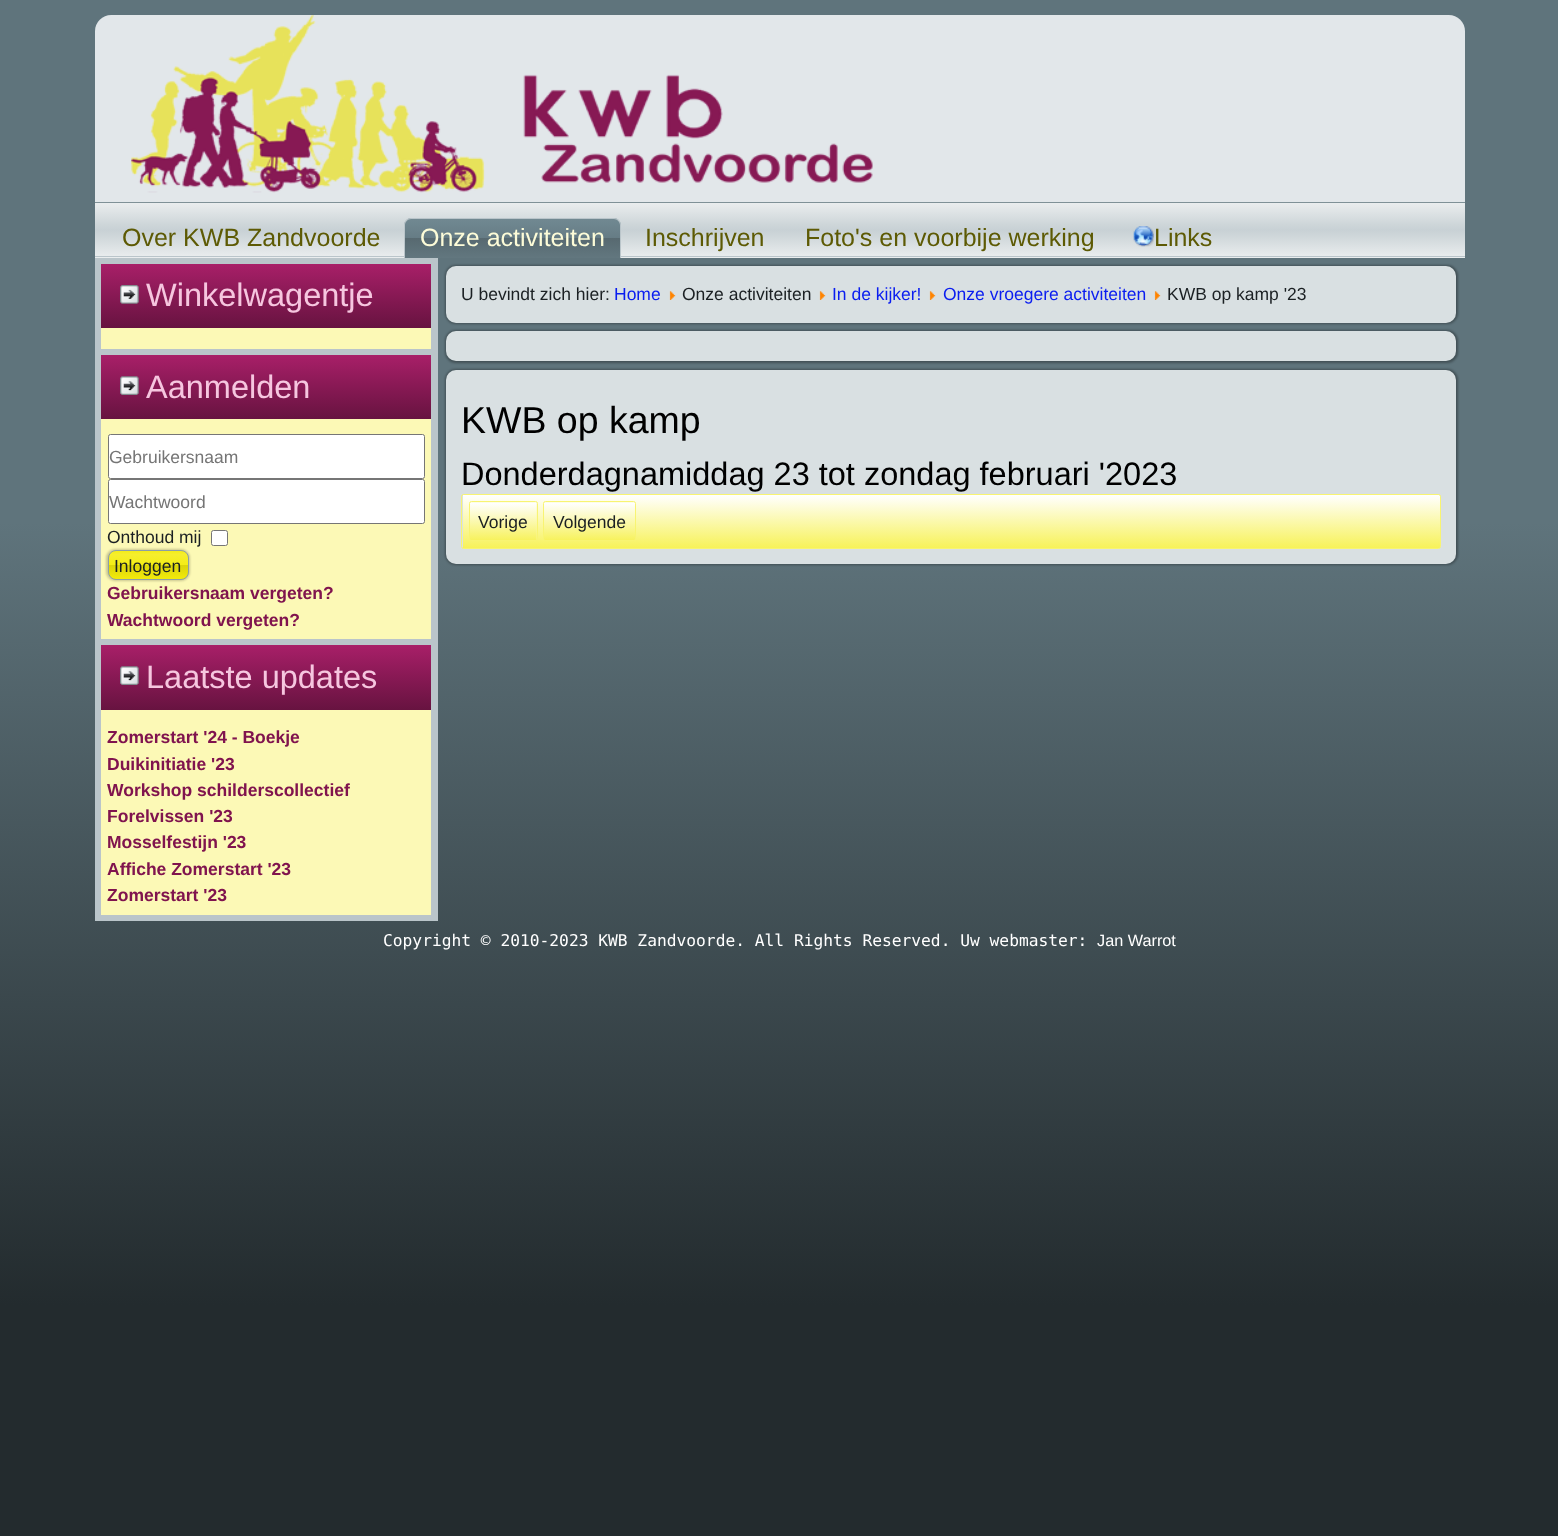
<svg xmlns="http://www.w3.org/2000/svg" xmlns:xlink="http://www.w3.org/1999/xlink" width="1558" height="1536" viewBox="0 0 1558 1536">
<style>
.cls-1{font:25px Liberation Sans;fill:#5d5a04}
.cls-2{font:25px Liberation Sans;fill:#fdfcd8}
.cls-3{font:32.5px Liberation Sans;fill:#f6c6df}
.cls-4{font:17.5px Liberation Sans;fill:#757575}
.cls-5{font:17.5px Liberation Sans;fill:#1b2023}
.cls-6{font:bold 17.5px Liberation Sans;fill:#80144e}
.cls-7{font:17.5px Liberation Sans;fill:#0a1df0}
.cls-8{font:37.5px Liberation Sans;fill:#000000}
.cls-9{font:32.5px Liberation Sans;fill:#000000}
.cls-10{font:16.25px DejaVu Sans Mono;fill:#ffffff}
.cls-11{font:16.25px Liberation Sans;fill:#ffffff}
</style>
<defs>
<linearGradient id="g1" gradientUnits="userSpaceOnUse" x1="779" y1="0" x2="779" y2="1536"><stop offset="0" stop-color="#5f747c"/><stop offset="0.34" stop-color="#5f747c"/><stop offset="0.85" stop-color="#232b2e"/></linearGradient>
<linearGradient id="g2" gradientUnits="userSpaceOnUse" x1="780" y1="202" x2="780" y2="258"><stop offset="0" stop-color="#ebeeef"/><stop offset="0.4" stop-color="#ced6d9"/><stop offset="0.5" stop-color="#c8d1d5"/><stop offset="0.6" stop-color="#ced6d9"/><stop offset="1" stop-color="#ebeeef"/></linearGradient>
<linearGradient id="g3" gradientUnits="userSpaceOnUse" x1="513" y1="218" x2="513" y2="258"><stop offset="0" stop-color="#728992"/><stop offset="0.1" stop-color="#6f8790"/><stop offset="0.5" stop-color="#667c85"/><stop offset="0.5" stop-color="#576970"/><stop offset="1" stop-color="#62777f"/></linearGradient>
<linearGradient id="g4" gradientUnits="userSpaceOnUse" x1="266" y1="264" x2="266" y2="328"><stop offset="0" stop-color="#a81f68"/><stop offset="1" stop-color="#671340"/></linearGradient>
<linearGradient id="g5" gradientUnits="userSpaceOnUse" x1="266" y1="355" x2="266" y2="419"><stop offset="0" stop-color="#a81f68"/><stop offset="1" stop-color="#671340"/></linearGradient>
<linearGradient id="g6" gradientUnits="userSpaceOnUse" x1="148" y1="550" x2="148" y2="580"><stop offset="0" stop-color="#f4ec10"/><stop offset="0.15" stop-color="#f5ee2e"/><stop offset="0.5" stop-color="#f4ed15"/><stop offset="0.5" stop-color="#f4ec0b"/><stop offset="0.5" stop-color="#dbd40a"/><stop offset="1" stop-color="#f4ec0b"/></linearGradient>
<linearGradient id="g7" gradientUnits="userSpaceOnUse" x1="266" y1="645" x2="266" y2="710"><stop offset="0" stop-color="#a81f68"/><stop offset="1" stop-color="#671340"/></linearGradient>
<linearGradient id="g8" gradientUnits="userSpaceOnUse" x1="951" y1="495" x2="951" y2="548"><stop offset="0" stop-color="#ffffff"/><stop offset="1" stop-color="#f7f259"/></linearGradient>
<linearGradient id="g9" gradientUnits="userSpaceOnUse" x1="503" y1="503" x2="503" y2="540"><stop offset="0" stop-color="#ffffff"/><stop offset="1" stop-color="#f7f25e"/></linearGradient>
<linearGradient id="g10" gradientUnits="userSpaceOnUse" x1="589" y1="503" x2="589" y2="540"><stop offset="0" stop-color="#ffffff"/><stop offset="1" stop-color="#f7f25e"/></linearGradient>
</defs>
<rect width="100%" height="100%" fill="#ffffff"/>
<rect fill="url(#g1)" x="0" y="0" width="1558" height="1536"/>
<image xlink:href="image0.png" x="95" y="15" width="1370" height="188"/>
<rect fill="url(#g2)" x="95" y="203" width="1370" height="55"/>
<rect fill="#bac5ca" x="95" y="256" width="1370" height="1"/>
<path fill="url(#g3)" d="M412 218H613C617.5 218 621 221.5 621 226V258H404V226C404 221.5 407.5 218 412 218Z"/>
<path fill="#bac5ca" fill-rule="evenodd" d="M411 218H614C618 218 621 221 621 225V258H404V225C404 221 407 218 411 218ZM411 219H614C617 219 620 222 620 225V258H405V225C405 222 408 219 411 219Z"/>
<image xlink:href="image1.png" x="1133" y="226" width="21" height="21"/>
<rect fill="#bac5ca" x="95" y="258" width="343" height="663"/>
<rect fill="#fcf9b6" x="101" y="328" width="330" height="21"/>
<rect fill="url(#g4)" x="101" y="264" width="330" height="64"/>
<image xlink:href="image2.png" x="120" y="285" width="19" height="19"/>
<rect fill="#fcf9b6" x="101" y="419" width="330" height="220"/>
<rect fill="url(#g5)" x="101" y="355" width="330" height="64"/>
<image xlink:href="image3.png" x="120" y="376" width="19" height="19"/>
<rect fill="#ffffff" stroke="#767676" x="108.5" y="434.5" width="316" height="44" rx="2"/>
<rect fill="#ffffff" stroke="#767676" x="108.5" y="479.5" width="316" height="44" rx="2"/>
<rect fill="#ffffff" stroke="#767676" x="211.5" y="530.5" width="16" height="15" rx="2"/>
<rect fill="#000000" fill-opacity="0.2" filter="blur(1px)" x="106" y="549" width="84" height="32" rx="9"/>
<rect fill="url(#g6)" stroke="#8c9fa6" x="108.5" y="550.5" width="80" height="29" rx="7.5"/>
<rect fill="#fcf9b6" x="101" y="710" width="330" height="205"/>
<rect fill="url(#g7)" x="101" y="645" width="330" height="65"/>
<image xlink:href="image4.png" x="120" y="666" width="19" height="19"/>
<rect fill="#000000" fill-opacity="0.3" filter="blur(1px)" x="445" y="265" width="1013" height="59" rx="11"/>
<rect fill="#d9e0e2" x="446" y="266" width="1010" height="57" rx="10"/>
<image xlink:href="image5.png" x="669" y="291" width="7" height="9"/>
<image xlink:href="image5.png" x="819" y="291" width="7" height="9"/>
<image xlink:href="image5.png" x="929" y="291" width="7" height="9"/>
<image xlink:href="image5.png" x="1154" y="291" width="7" height="9"/>
<rect fill="#000000" fill-opacity="0.3" filter="blur(1px)" x="445" y="330" width="1013" height="33" rx="11"/>
<rect fill="#d9e0e2" x="446" y="331" width="1010" height="30" rx="10"/>
<rect fill="#000000" fill-opacity="0.3" filter="blur(1px)" x="445" y="369" width="1013" height="196" rx="11"/>
<rect fill="#d9e0e2" x="446" y="370" width="1010" height="194" rx="10"/>
<rect fill="url(#g8)" x="463" y="495" width="977" height="53"/>
<rect fill="none" stroke="#f8f472" x="461.5" y="494.5" width="979" height="54" rx="2"/>
<rect fill="url(#g9)" x="470" y="503" width="66" height="37"/>
<rect fill="none" stroke="#f8f472" x="469.5" y="501.5" width="68" height="39" rx="2"/>
<rect fill="url(#g10)" x="544" y="503" width="91" height="37"/>
<rect fill="none" stroke="#f8f472" x="543.5" y="501.5" width="92" height="39" rx="2"/>
<text class="cls-1" x="122" y="246">Over KWB Zandvoorde</text>
<text class="cls-2" x="420" y="246">Onze activiteiten</text>
<text class="cls-1" x="645" y="246">Inschrijven</text>
<text class="cls-1" x="805" y="246">Foto's en voorbije werking</text>
<text class="cls-1" x="1154" y="246">Links</text>
<text class="cls-3" x="146" y="306">Winkelwagentje</text>
<text class="cls-3" x="146" y="398">Aanmelden</text>
<text class="cls-4" x="109" y="463">Gebruikersnaam</text>
<text class="cls-4" x="109" y="508">Wachtwoord</text>
<text class="cls-5" x="107" y="543">Onthoud mij</text>
<text class="cls-5" x="114" y="572">Inloggen</text>
<text class="cls-6"><tspan x="107" y="599">Gebruikersnaam vergeten?</tspan><tspan x="107" y="626">Wachtwoord vergeten?</tspan></text>
<text class="cls-3" x="146" y="688">Laatste updates</text>
<text class="cls-6"><tspan x="107" y="743">Zomerstart '24 - Boekje</tspan><tspan x="107" y="770">Duikinitiatie '23</tspan><tspan x="107" y="796">Workshop schilderscollectief</tspan><tspan x="107" y="822">Forelvissen '23</tspan><tspan x="107" y="848">Mosselfestijn '23</tspan><tspan x="107" y="875">Affiche Zomerstart '23</tspan><tspan x="107" y="901">Zomerstart '23</tspan></text>
<text class="cls-5" x="461" y="300">U bevindt zich hier:</text>
<text class="cls-7" x="614" y="300">Home</text>
<text class="cls-5" x="682" y="300">Onze activiteiten</text>
<text class="cls-7" x="832" y="300">In de kijker!</text>
<text class="cls-7" x="943" y="300">Onze vroegere activiteiten</text>
<text class="cls-5" x="1167" y="300">KWB op kamp '23</text>
<text class="cls-8" x="461" y="433">KWB op kamp</text>
<text class="cls-9" x="461" y="485">Donderdagnamiddag 23 tot zondag februari '2023</text>
<text class="cls-5" x="478" y="528">Vorige</text>
<text class="cls-5" x="553" y="528">Volgende</text>
<text class="cls-10" x="383" y="946">Copyright © 2010-2023 KWB Zandvoorde. All Rights Reserved. Uw webmaster:</text>
<text class="cls-11" x="1097" y="946">Jan Warrot</text>
</svg>
